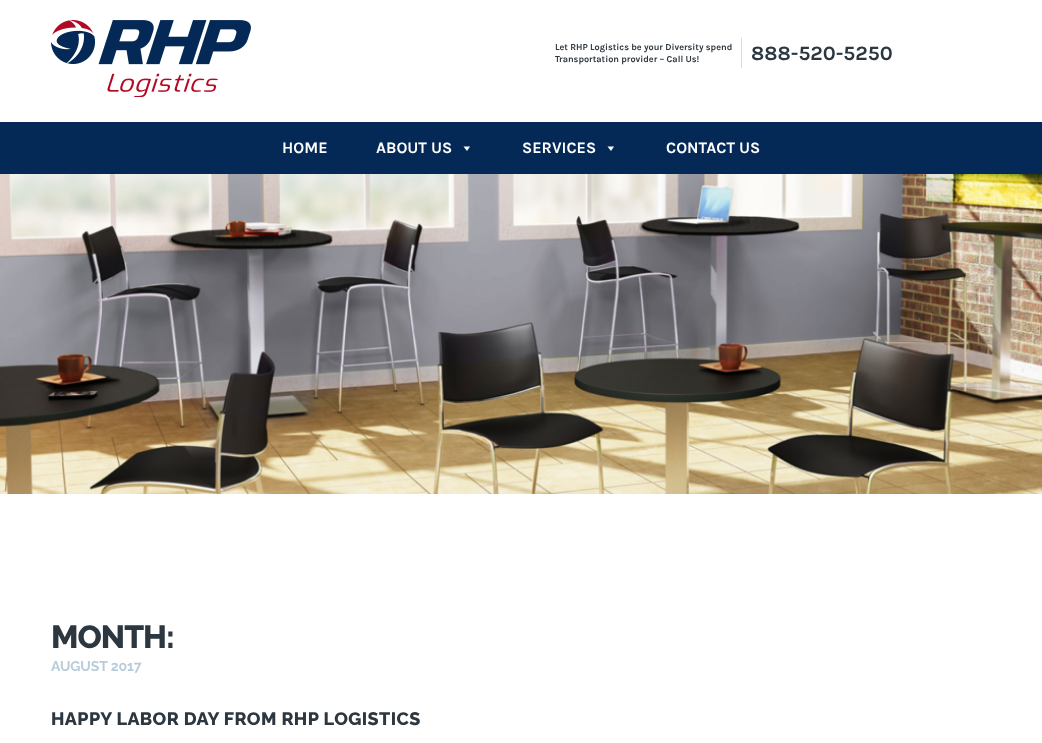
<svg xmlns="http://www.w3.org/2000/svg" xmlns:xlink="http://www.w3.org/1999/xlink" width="1042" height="743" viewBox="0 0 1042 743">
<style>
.cls-1{font:bold 9.1px Karla;fill:#2c3740}
.cls-2{font:bold 20.5px Karla;fill:#2c3740}
.cls-3{font:bold 16px Karla;fill:#ffffff}
.cls-4{font:800 32px Raleway;letter-spacing:-1px;fill:#2c3740}
.cls-5{font:bold 14px Raleway;letter-spacing:-0.1px;fill:#b9ccdb}
.cls-6{font:800 18px Raleway;letter-spacing:0.4px;fill:#2c3740}
</style>
<rect width="100%" height="100%" fill="#ffffff"/>
<image xlink:href="image0.png" x="51" y="20" width="200" height="77"/>
<rect fill="#d5dce4" x="741" y="38" width="1" height="30"/>
<rect fill="#052956" x="0" y="122" width="1042" height="52"/>
<path fill="#ffffff" d="M470 146.5L467 151L463.5 146.5Z"/>
<path fill="#ffffff" d="M614 146.5L611 151L607.5 146.5Z"/>
<image xlink:href="image1.png" x="0" y="174" width="1042" height="320"/>
<text class="cls-1"><tspan x="555" y="50">Let RHP Logistics be your Diversity spend</tspan><tspan x="555" y="62">Transportation provider – Call Us!</tspan></text>
<text class="cls-2" x="751" y="60">888-520-5250</text>
<text class="cls-3" x="282" y="153">HOME</text>
<text class="cls-3" x="376" y="153">ABOUT US</text>
<text class="cls-3" x="522" y="153">SERVICES</text>
<text class="cls-3" x="666" y="153">CONTACT US</text>
<text class="cls-4" x="51" y="648">MONTH:</text>
<text class="cls-5" x="51" y="671">AUGUST 2017</text>
<text class="cls-6" x="51" y="725">HAPPY LABOR DAY FROM RHP LOGISTICS</text>
</svg>
